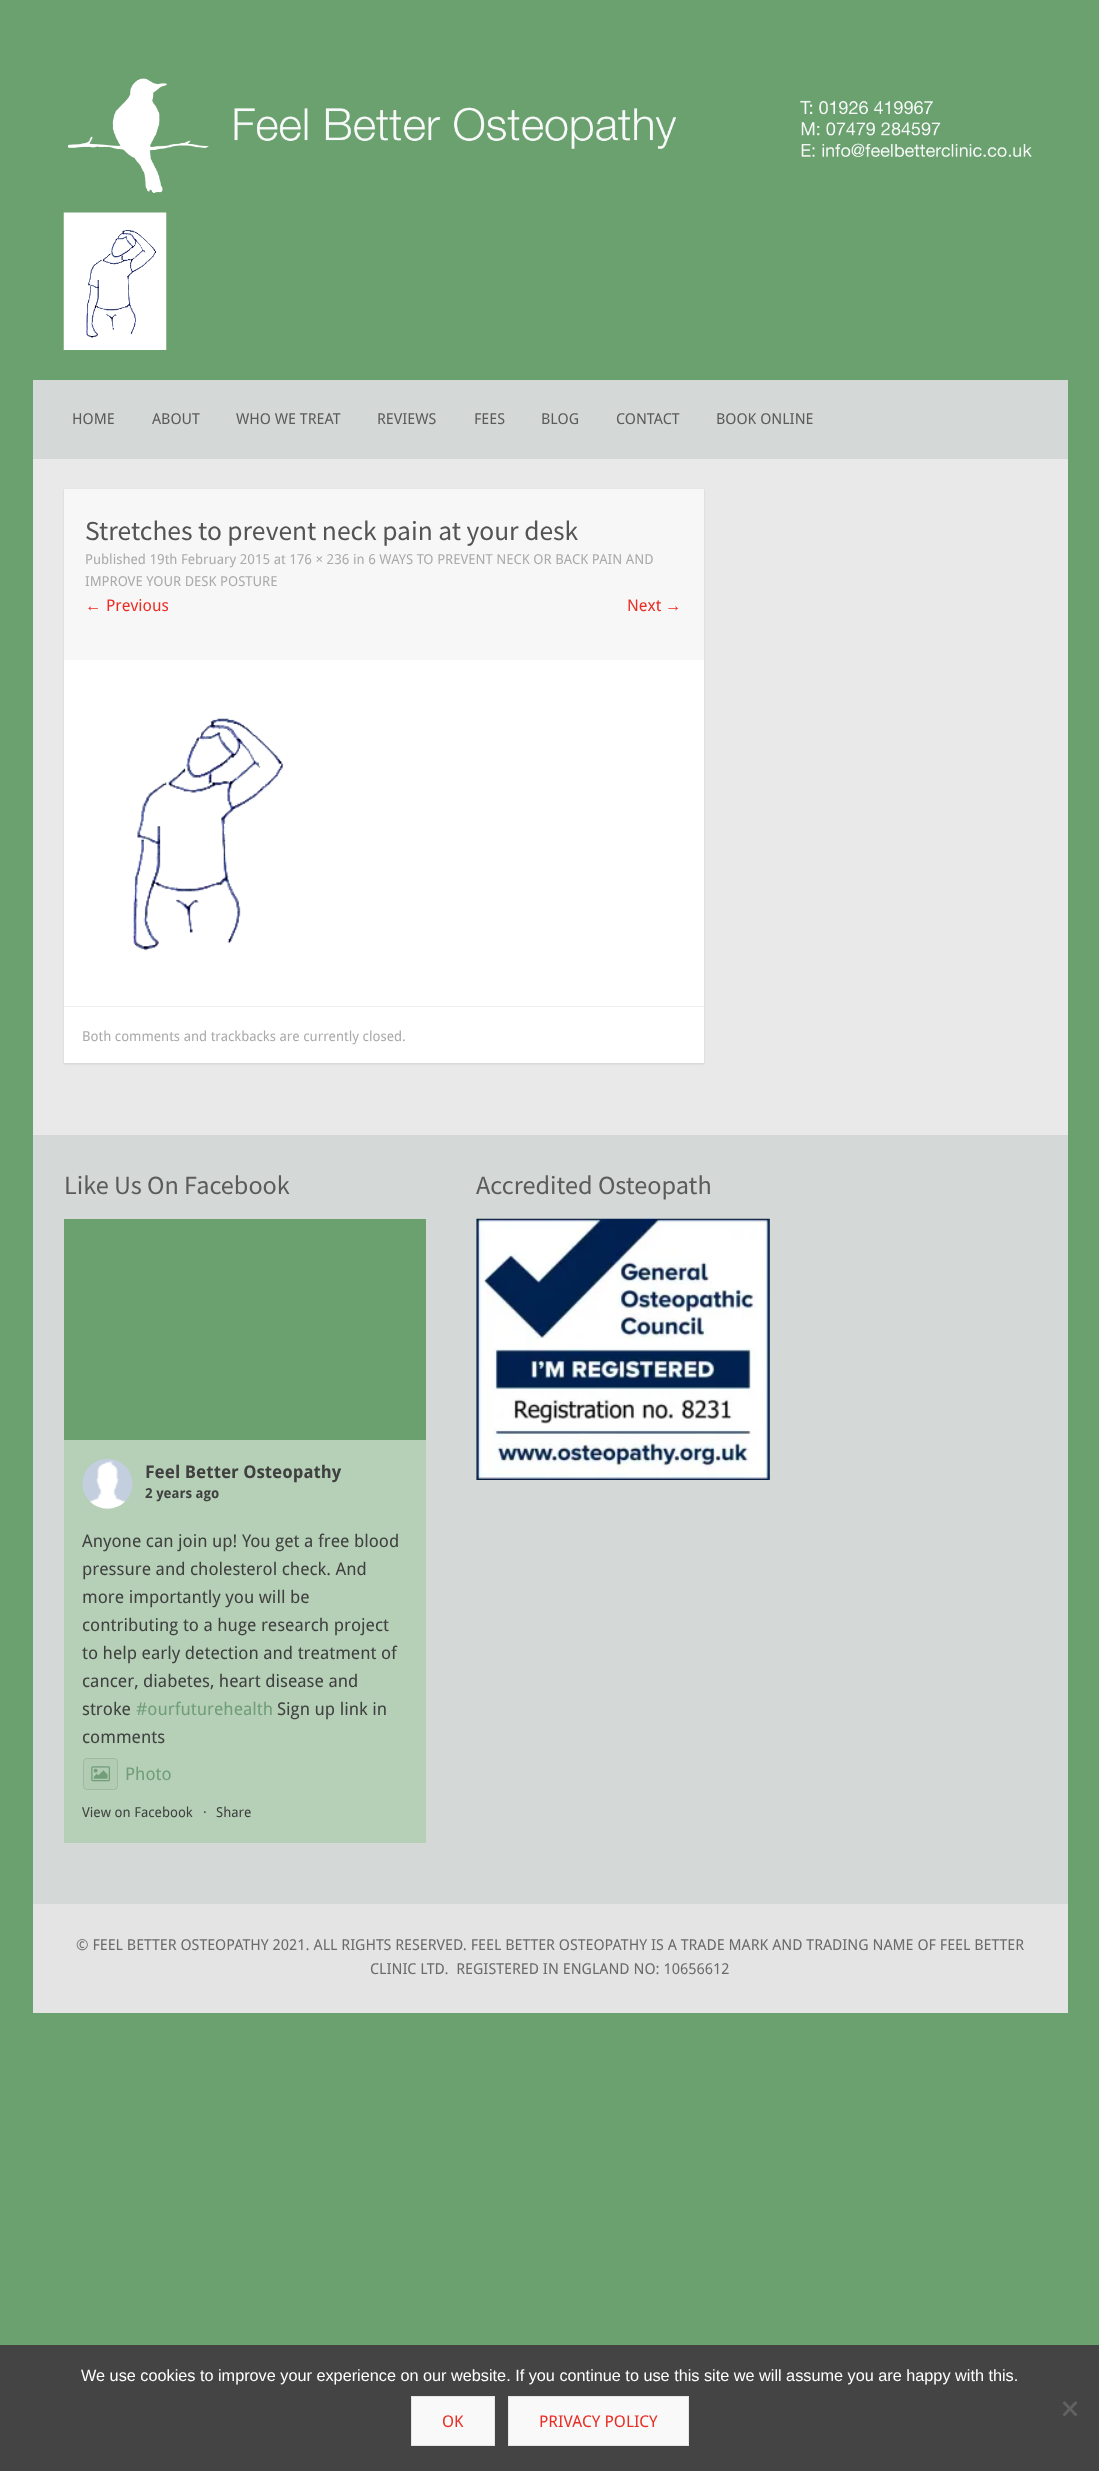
<svg xmlns="http://www.w3.org/2000/svg" xmlns:xlink="http://www.w3.org/1999/xlink" width="1099" height="2471" viewBox="0 0 1099 2471">
<style>
.cls-1{font:15px Droid Sans;fill:#5b5b5b}
.cls-2{font:27.5px Source Sans Pro;fill:#545454}
.cls-3{font:13.75px Droid Sans;fill:#aaaaaa}
.cls-4{font:16.25px Liberation Sans;fill:#ea2e25}
.cls-5{font:16.25px Droid Sans;fill:#ea2e25}
.cls-6{font:26.25px Source Sans Pro;fill:#5b5b5b}
.cls-7{font:bold 17.5px Droid Sans;fill:#404040}
.cls-8{font:bold 13.75px Droid Sans;fill:#404040}
.cls-9{font:17.5px Droid Sans;fill:#404040}
.cls-10{font:17.5px Droid Sans;fill:#719d79}
.cls-11{font:13.75px Droid Sans;fill:#404040}
.cls-12{font:15px Droid Sans;fill:#6b6b6b}
.cls-13{font:16.25px Liberation Sans;fill:#ffffff}
</style>
<rect width="100%" height="100%" fill="#6ba16f"/>
<image xlink:href="image0.png" x="67" y="78" width="965" height="115"/>
<image xlink:href="image1.png" x="63" y="212" width="104" height="138"/>
<rect fill="#d4d8d6" x="33" y="380" width="1035" height="79"/>
<rect fill="#e9e9e9" x="33" y="459" width="1035" height="676"/>
<rect fill="#000000" fill-opacity="0.1" filter="blur(1px)" x="64" y="490" width="640" height="574"/>
<rect fill="#ffffff" x="64" y="660" width="640" height="403"/>
<rect fill="#f7f7f7" x="64" y="489" width="640" height="171"/>
<image xlink:href="image2.png" x="132" y="718" width="152" height="233"/>
<rect fill="#eeeeee" x="64" y="1006" width="640" height="1"/>
<rect fill="#d4d8d6" x="33" y="1135" width="1035" height="769"/>
<rect fill="#6ba16f" x="64" y="1219" width="362" height="221"/>
<rect fill="#b5d0b7" x="64" y="1440" width="362" height="403"/>
<image xlink:href="image3.png" x="82" y="1458" width="51" height="51"/>
<rect fill="#b1ccb3" stroke="#9fb8a1" x="83.5" y="1758.5" width="34" height="31" rx="3.5"/>
<image xlink:href="image4.png" x="91" y="1766" width="19" height="16"/>
<image xlink:href="image5.png" x="476" y="1218" width="294" height="262"/>
<rect fill="#e4e4e4" x="33" y="1904" width="1035" height="109"/>
<rect fill="#444444" x="0" y="2345" width="1099" height="126"/>
<path fill="#626262" d="M1075.5 2401L1077.5 2403L1064.5 2416.5L1062.5 2414.5Z"/>
<path fill="#626262" d="M1062.5 2403L1064.5 2401L1077.5 2414.5L1075.5 2416.5Z"/>
<rect fill="#f9f9f9" stroke="#e6e6e6" x="411.5" y="2396.5" width="83" height="49"/>
<rect fill="#f9f9f9" stroke="#e6e6e6" x="508.5" y="2396.5" width="180" height="49"/>
<text class="cls-1" x="72" y="424">HOME</text>
<text class="cls-1" x="152" y="424">ABOUT</text>
<text class="cls-1" x="236" y="424">WHO WE TREAT</text>
<text class="cls-1" x="377" y="424">REVIEWS</text>
<text class="cls-1" x="474" y="424">FEES</text>
<text class="cls-1" x="541" y="424">BLOG</text>
<text class="cls-1" x="616" y="424">CONTACT</text>
<text class="cls-1" x="716" y="424">BOOK ONLINE</text>
<text class="cls-2" x="85" y="540">Stretches to prevent neck pain at your desk</text>
<text class="cls-3"><tspan x="85" y="564">Published 19th February 2015 at 176 × 236 in 6 WAYS TO PREVENT NECK OR BACK PAIN AND</tspan><tspan x="85" y="586">IMPROVE YOUR DESK POSTURE</tspan></text>
<text class="cls-4" x="85" y="611">←</text>
<text class="cls-5" x="106" y="611">Previous</text>
<text class="cls-5" x="627" y="611">Next</text>
<text class="cls-4" x="665" y="611">→</text>
<text class="cls-3" x="82" y="1041">Both comments and trackbacks are currently closed.</text>
<text class="cls-6" x="64" y="1194">Like Us On Facebook</text>
<text class="cls-7" x="145" y="1478">Feel Better Osteopathy</text>
<text class="cls-8" x="145" y="1498">2 years ago</text>
<text class="cls-9"><tspan x="82" y="1547">Anyone can join up! You get a free blood</tspan><tspan x="82" y="1575">pressure and cholesterol check. And</tspan><tspan x="82" y="1603">more importantly you will be</tspan><tspan x="82" y="1631">contributing to a huge research project</tspan><tspan x="82" y="1659">to help early detection and treatment of</tspan><tspan x="82" y="1687">cancer, diabetes, heart disease and</tspan><tspan x="82" y="1715">stroke</tspan></text>
<text class="cls-10" x="136" y="1715">#ourfuturehealth</text>
<text class="cls-9" x="277" y="1715">Sign up link in</text>
<text class="cls-9" x="82" y="1743">comments</text>
<text class="cls-10" x="125" y="1780">Photo</text>
<text class="cls-11" x="82" y="1817">View on Facebook</text>
<text class="cls-11" x="203" y="1817">·</text>
<text class="cls-11" x="216" y="1817">Share</text>
<text class="cls-6" x="476" y="1194">Accredited Osteopath</text>
<text class="cls-12" x="76" y="1950">© FEEL BETTER OSTEOPATHY 2021. ALL RIGHTS RESERVED. FEEL BETTER OSTEOPATHY IS A TRADE MARK AND TRADING NAME OF FEEL BETTER</text>
<text class="cls-12" xml:space="preserve" x="370" y="1974">CLINIC LTD.  REGISTERED IN ENGLAND NO: 10656612</text>
<text class="cls-13" x="81" y="2381">We use cookies to improve your experience on our website. If you continue to use this site we will assume you are happy with this.</text>
<text class="cls-5" x="442" y="2427">OK</text>
<text class="cls-5" x="539" y="2427">PRIVACY POLICY</text>
</svg>
